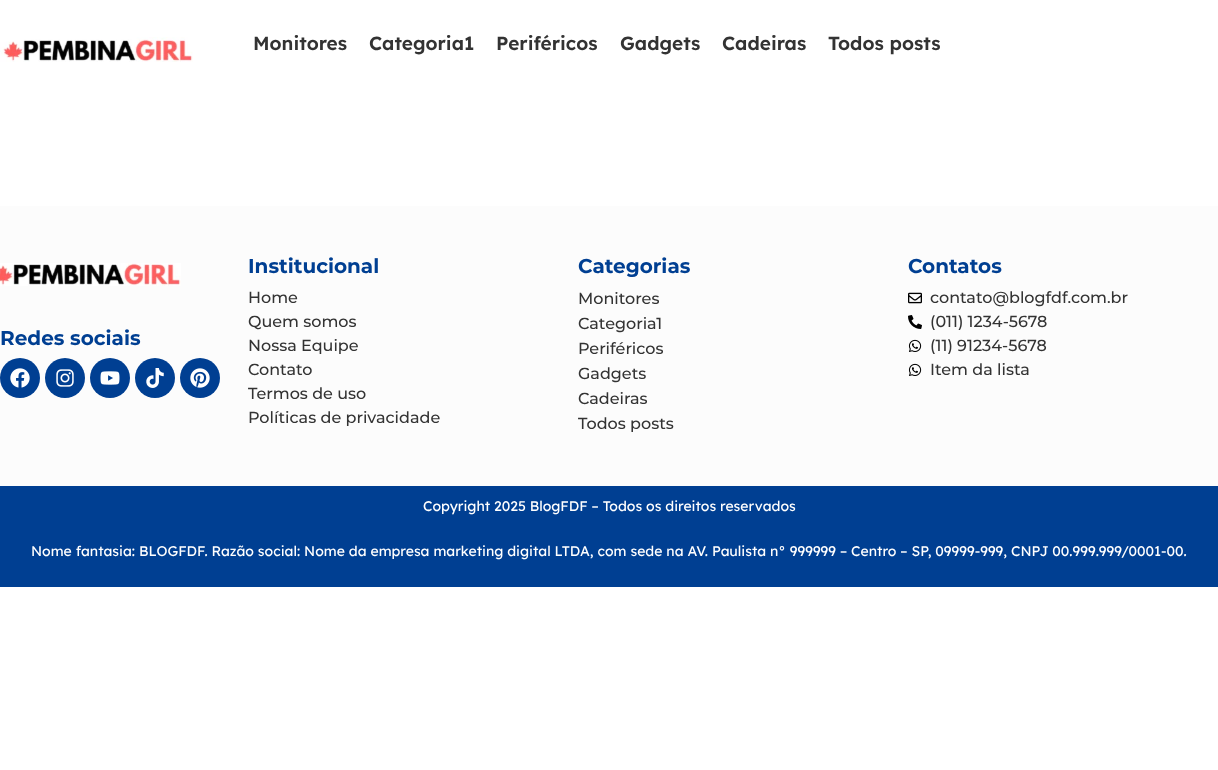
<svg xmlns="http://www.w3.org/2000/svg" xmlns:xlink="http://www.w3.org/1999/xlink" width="1218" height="770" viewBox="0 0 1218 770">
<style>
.cls-1{font:600 19px Lexend;fill:#333333}
.cls-2{font:bold 20px Montserrat;fill:#003f92}
.cls-3{font:500 16px Montserrat;fill:#333333}
.cls-4{font:14px Lexend;fill:#ffffff}
</style>
<rect width="100%" height="100%" fill="#ffffff"/>
<image xlink:href="image0.png" x="0" y="37" width="193" height="25"/>
<rect fill="#fcfcfc" x="0" y="206" width="1218" height="280"/>
<image xlink:href="image1.png" x="0" y="263" width="181" height="23"/>
<circle fill="#003f92" cx="20" cy="378" r="20"/>
<image xlink:href="image2.png" x="10" y="368" width="20" height="20"/>
<circle fill="#003f92" cx="65" cy="378" r="20"/>
<image xlink:href="image3.png" x="56" y="369" width="18" height="18"/>
<circle fill="#003f92" cx="110" cy="378" r="20"/>
<image xlink:href="image4.png" x="100" y="371" width="20" height="14"/>
<circle fill="#003f92" cx="155" cy="378" r="20"/>
<image xlink:href="image5.png" x="146" y="368" width="18" height="20"/>
<circle fill="#003f92" cx="200" cy="378" r="20"/>
<image xlink:href="image6.png" x="190" y="368" width="20" height="20"/>
<image xlink:href="image7.png" x="908" y="292" width="14" height="12"/>
<image xlink:href="image8.png" x="908" y="315" width="14" height="14"/>
<image xlink:href="image9.png" x="908" y="339" width="14" height="13"/>
<image xlink:href="image9.png" x="908" y="363" width="14" height="13"/>
<rect fill="#003f92" x="0" y="486" width="1218" height="101"/>
<text class="cls-1" x="253" y="50">Monitores</text>
<text class="cls-1" x="369" y="50">Categoria1</text>
<text class="cls-1" x="496" y="50">Periféricos</text>
<text class="cls-1" x="620" y="50">Gadgets</text>
<text class="cls-1" x="722" y="50">Cadeiras</text>
<text class="cls-1" x="828" y="50">Todos posts</text>
<text class="cls-2" x="0" y="345">Redes sociais</text>
<text class="cls-2" x="248" y="273">Institucional</text>
<text class="cls-3"><tspan x="248" y="303">Home</tspan><tspan x="248" y="327">Quem somos</tspan><tspan x="248" y="351">Nossa Equipe</tspan><tspan x="248" y="375">Contato</tspan><tspan x="248" y="399">Termos de uso</tspan><tspan x="248" y="423">Políticas de privacidade</tspan></text>
<text class="cls-2" x="578" y="273">Categorias</text>
<text class="cls-3"><tspan x="578" y="304">Monitores</tspan><tspan x="578" y="329">Categoria1</tspan><tspan x="578" y="354">Periféricos</tspan><tspan x="578" y="379">Gadgets</tspan><tspan x="578" y="404">Cadeiras</tspan><tspan x="578" y="429">Todos posts</tspan></text>
<text class="cls-2" x="908" y="273">Contatos</text>
<text class="cls-3"><tspan x="930" y="303">contato@blogfdf.com.br</tspan><tspan x="930" y="327">(011) 1234-5678</tspan><tspan x="930" y="351">(11) 91234-5678</tspan><tspan x="930" y="375">Item da lista</tspan></text>
<text class="cls-4" x="423" y="511">Copyright 2025 BlogFDF – Todos os direitos reservados</text>
<text class="cls-4" x="31" y="556">Nome fantasia: BLOGFDF. Razão social: Nome da empresa marketing digital LTDA, com sede na AV. Paulista n° 999999 – Centro – SP, 09999-999, CNPJ 00.999.999/0001-00.</text>
</svg>
